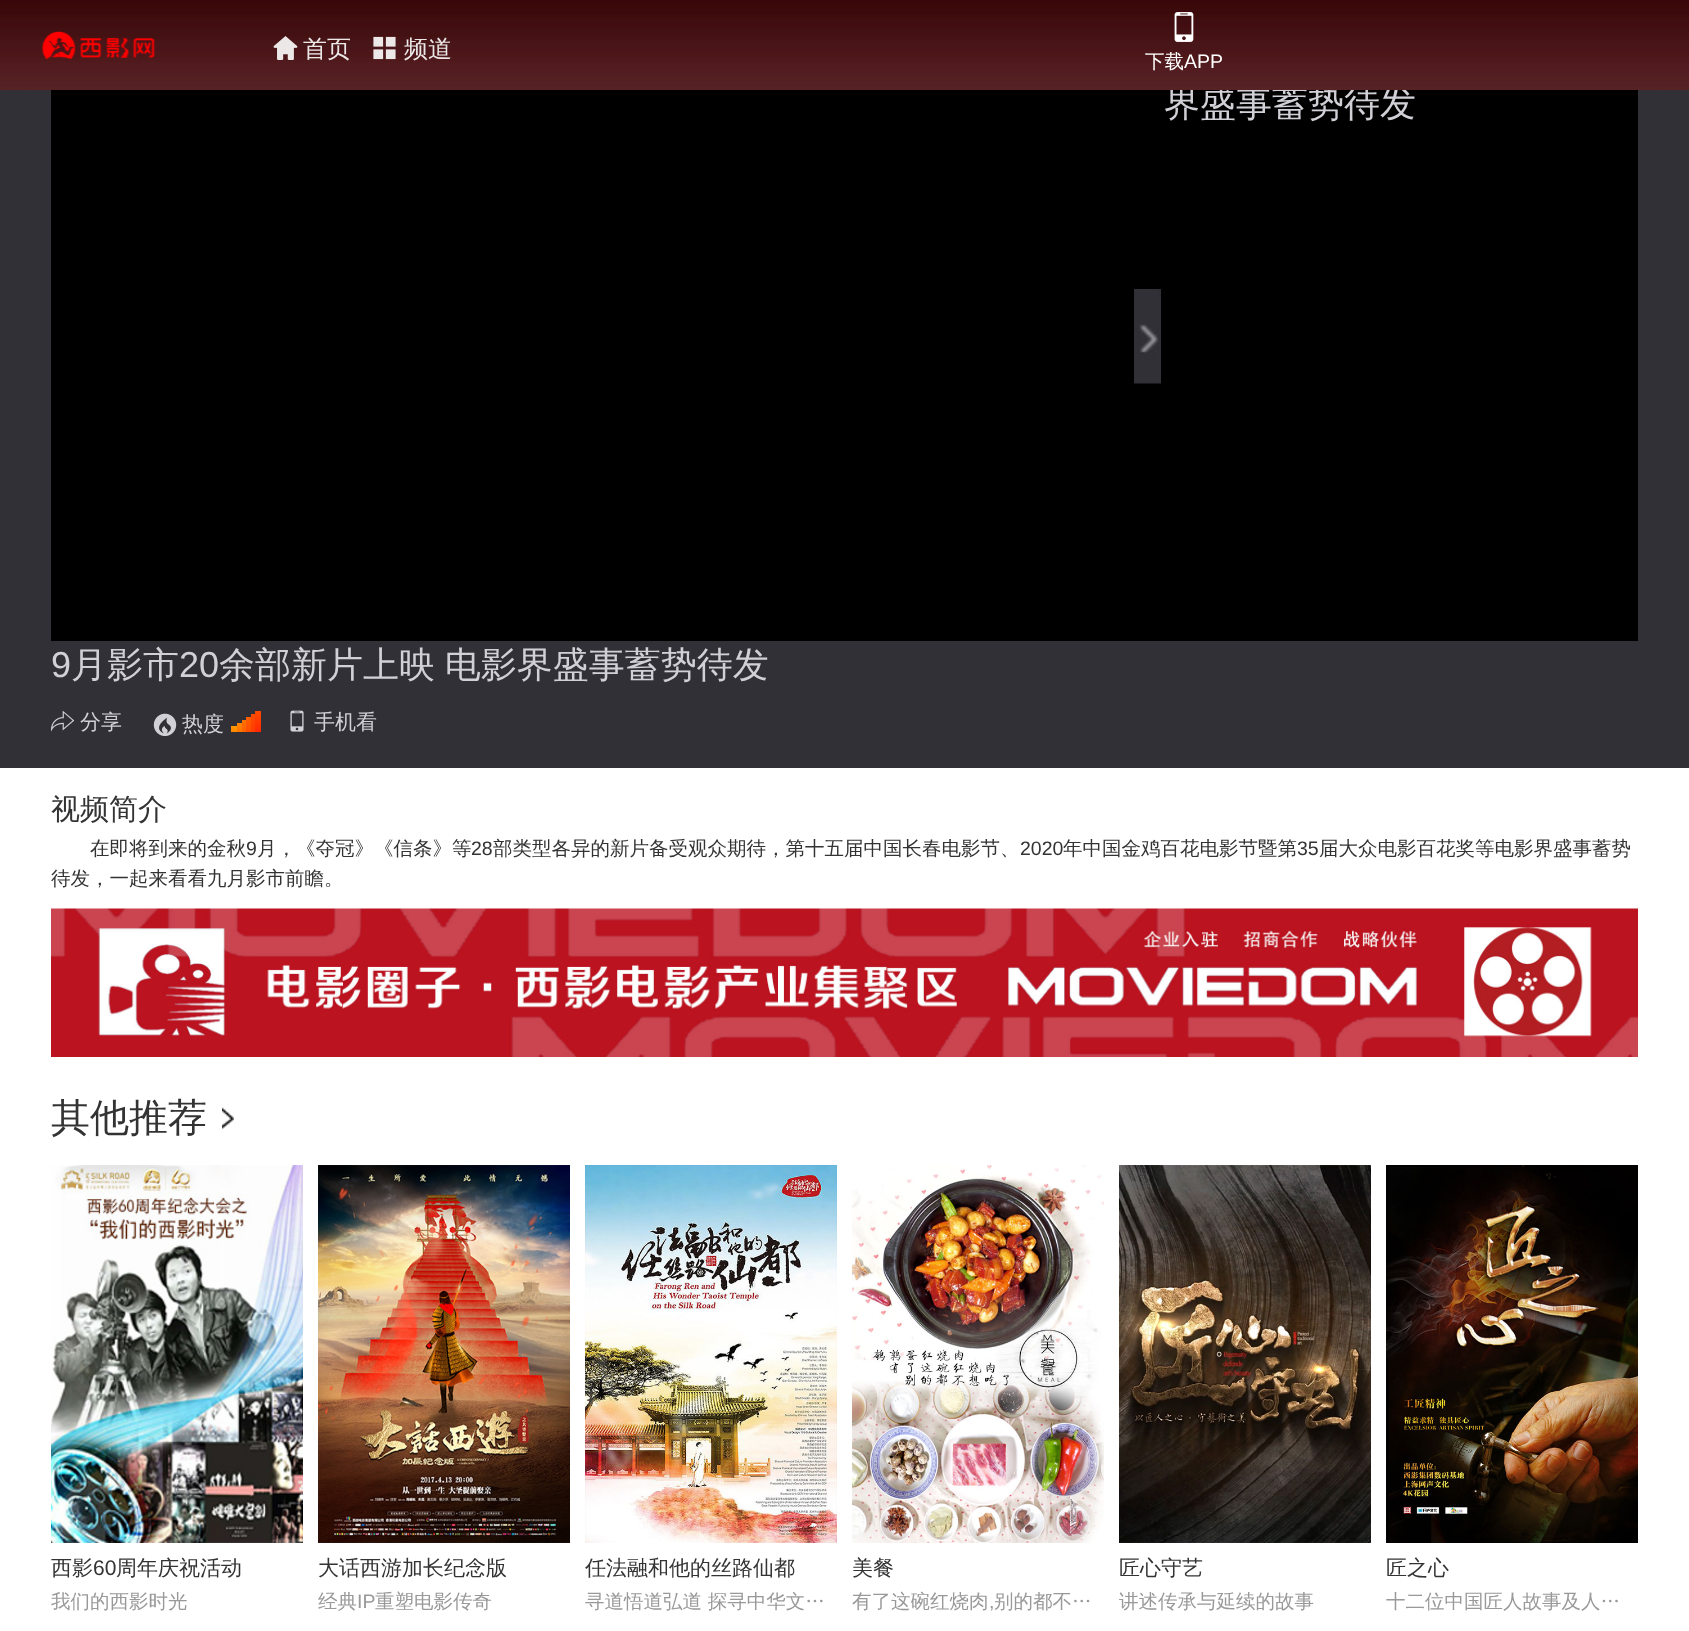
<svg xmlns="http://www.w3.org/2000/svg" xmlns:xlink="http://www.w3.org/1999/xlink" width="1689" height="1631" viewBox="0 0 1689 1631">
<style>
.cls-1{font:500 36px WenQuanYi Zen Hei;fill:#d0d0d6}
.cls-2{font:19.5px Liberation Sans;fill:#ffffff}
.cls-3{font:500 19.5px WenQuanYi Zen Hei;fill:#ffffff}
.cls-4{font:500 24px WenQuanYi Zen Hei;fill:#ede8e8}
.cls-5{font:36px Liberation Sans;fill:#d0d0d6}
.cls-6{font:500 21px WenQuanYi Zen Hei;fill:#d0d0d6}
.cls-7{font:500 29px WenQuanYi Zen Hei;fill:#333333}
.cls-8{font:500 19.5px WenQuanYi Zen Hei;fill:#333333}
.cls-9{font:19.5px Liberation Sans;fill:#333333}
.cls-10{font:500 39px WenQuanYi Zen Hei;fill:#333333}
.cls-11{font:500 21px WenQuanYi Zen Hei;fill:#333333}
.cls-12{font:21px Liberation Sans;fill:#333333}
.cls-13{font:500 19.5px WenQuanYi Zen Hei;fill:#999999}
.cls-14{font:19.5px Liberation Sans;fill:#999999}
</style>
<defs>
<linearGradient id="g1" gradientUnits="userSpaceOnUse" x1="234" y1="726" x2="234" y2="732"><stop offset="0" stop-color="#ff9800"/><stop offset="1" stop-color="#ff8700"/></linearGradient>
<linearGradient id="g2" gradientUnits="userSpaceOnUse" x1="239" y1="723" x2="239" y2="732"><stop offset="0" stop-color="#ff8500"/><stop offset="1" stop-color="#ff7400"/></linearGradient>
<linearGradient id="g3" gradientUnits="userSpaceOnUse" x1="244" y1="720" x2="244" y2="732"><stop offset="0" stop-color="#ff7200"/><stop offset="1" stop-color="#ff6100"/></linearGradient>
<linearGradient id="g4" gradientUnits="userSpaceOnUse" x1="248" y1="717" x2="248" y2="732"><stop offset="0" stop-color="#ff5e00"/><stop offset="1" stop-color="#ff4d00"/></linearGradient>
<linearGradient id="g5" gradientUnits="userSpaceOnUse" x1="254" y1="714" x2="254" y2="732"><stop offset="0" stop-color="#ff4c00"/><stop offset="1" stop-color="#ff3b00"/></linearGradient>
<linearGradient id="g6" gradientUnits="userSpaceOnUse" x1="258" y1="711" x2="258" y2="732"><stop offset="0" stop-color="#ff4c00"/><stop offset="1" stop-color="#ff2700"/></linearGradient>
</defs>
<rect width="100%" height="100%" fill="#ffffff"/>
<rect fill="#303036" x="0" y="90" width="1689" height="678"/>
<rect fill="#000000" x="51" y="90" width="1113" height="551"/>
<image xlink:href="image5.png" x="1134" y="289" width="27" height="95"/>
<rect fill="#000000" x="1164" y="90" width="474" height="551"/>
<image xlink:href="image6.png" x="51" y="710" width="24" height="22"/>
<image xlink:href="image7.png" x="153" y="713" width="24" height="23"/>
<rect fill="url(#g1)" x="231" y="726" width="6" height="6"/>
<rect fill="url(#g2)" x="237" y="723" width="5" height="9"/>
<rect fill="url(#g3)" x="242" y="720" width="4" height="12"/>
<rect fill="url(#g4)" x="246" y="717" width="5" height="15"/>
<rect fill="url(#g5)" x="251" y="714" width="4" height="18"/>
<rect fill="url(#g6)" x="255" y="711" width="6" height="21"/>
<image xlink:href="image8.png" x="290" y="710" width="14" height="22"/>
<image xlink:href="image9.png" x="51" y="908" width="1587" height="149"/>
<image xlink:href="image10.png" x="222" y="1107" width="12" height="22"/>
<image xlink:href="image11.png" x="51" y="1165" width="252" height="378"/>
<image xlink:href="image12.png" x="318" y="1165" width="252" height="378"/>
<image xlink:href="image13.png" x="585" y="1165" width="252" height="378"/>
<image xlink:href="image14.png" x="852" y="1165" width="252" height="378"/>
<image xlink:href="image15.png" x="1119" y="1165" width="252" height="378"/>
<image xlink:href="image16.png" x="1386" y="1165" width="252" height="378"/>
<text class="cls-1" x="1164" y="116">界盛事蓄势待发</text>
<image xlink:href="image0.png" x="0" y="0" width="1689" height="90"/>
<text class="cls-2" x="1184" y="68">APP</text>
<text class="cls-3" x="1145" y="68">下载</text>
<image xlink:href="image4.png" x="1174" y="12" width="20" height="30"/>
<text class="cls-4" x="404" y="57">频道</text>
<image xlink:href="image3.png" x="373" y="36" width="23" height="24"/>
<text class="cls-4" x="303" y="57">首页</text>
<image xlink:href="image2.png" x="273" y="36" width="25" height="24"/>
<image xlink:href="image1.png" x="41" y="31" width="114" height="29"/>
<text class="cls-5" x="51" y="677">9</text>
<text class="cls-1" x="71" y="677">月影市</text>
<text class="cls-5" x="179" y="677">20</text>
<text class="cls-1" x="219" y="677" word-spacing="-1">余部新片上映 电影界盛事蓄势待发</text>
<text class="cls-6" x="80" y="729">分享</text>
<text class="cls-6" x="182" y="731">热度</text>
<text class="cls-6" x="314" y="729">手机看</text>
<text class="cls-7" x="51" y="819">视频简介</text>
<text class="cls-8" x="90" y="855">在即将到来的金秋</text>
<text class="cls-9" x="246" y="855">9</text>
<text class="cls-8" x="257" y="855">月，《夺冠》《信条》等</text>
<text class="cls-9" x="471" y="855">28</text>
<text class="cls-8" x="493" y="855">部类型各异的新片备受观众期待，第十五届中国长春电影节、</text>
<text class="cls-9" x="1020" y="855">2020</text>
<text class="cls-8" x="1063" y="855">年中国金鸡百花电影节暨第</text>
<text class="cls-9" x="1297" y="855">35</text>
<text class="cls-8" x="1319" y="855">届大众电影百花奖等电影界盛事蓄势</text>
<text class="cls-8" x="51" y="885">待发，一起来看看九月影市前瞻。</text>
<text class="cls-10" x="51" y="1131">其他推荐</text>
<text class="cls-11" x="51" y="1575">西影</text>
<text class="cls-12" x="93" y="1575">60</text>
<text class="cls-11" x="116" y="1575">周年庆祝活动</text>
<text class="cls-13" x="51" y="1608">我们的西影时光</text>
<text class="cls-11" x="318" y="1575">大话西游加长纪念版</text>
<text class="cls-13" x="318" y="1608">经典</text>
<text class="cls-14" x="357" y="1608">IP</text>
<text class="cls-13" x="375" y="1608">重塑电影传奇</text>
<text class="cls-11" x="585" y="1575">任法融和他的丝路仙都</text>
<text class="cls-13" x="585" y="1608">寻道悟道弘道 探寻中华文…</text>
<text class="cls-11" x="852" y="1575">美餐</text>
<text class="cls-13" x="852" y="1608">有了这碗红烧肉</text>
<text class="cls-14" x="989" y="1608">,</text>
<text class="cls-13" x="994" y="1608">别的都不…</text>
<text class="cls-11" x="1119" y="1575">匠心守艺</text>
<text class="cls-13" x="1119" y="1608">讲述传承与延续的故事</text>
<text class="cls-11" x="1386" y="1575">匠之心</text>
<text class="cls-13" x="1386" y="1608">十二位中国匠人故事及人…</text>
</svg>
